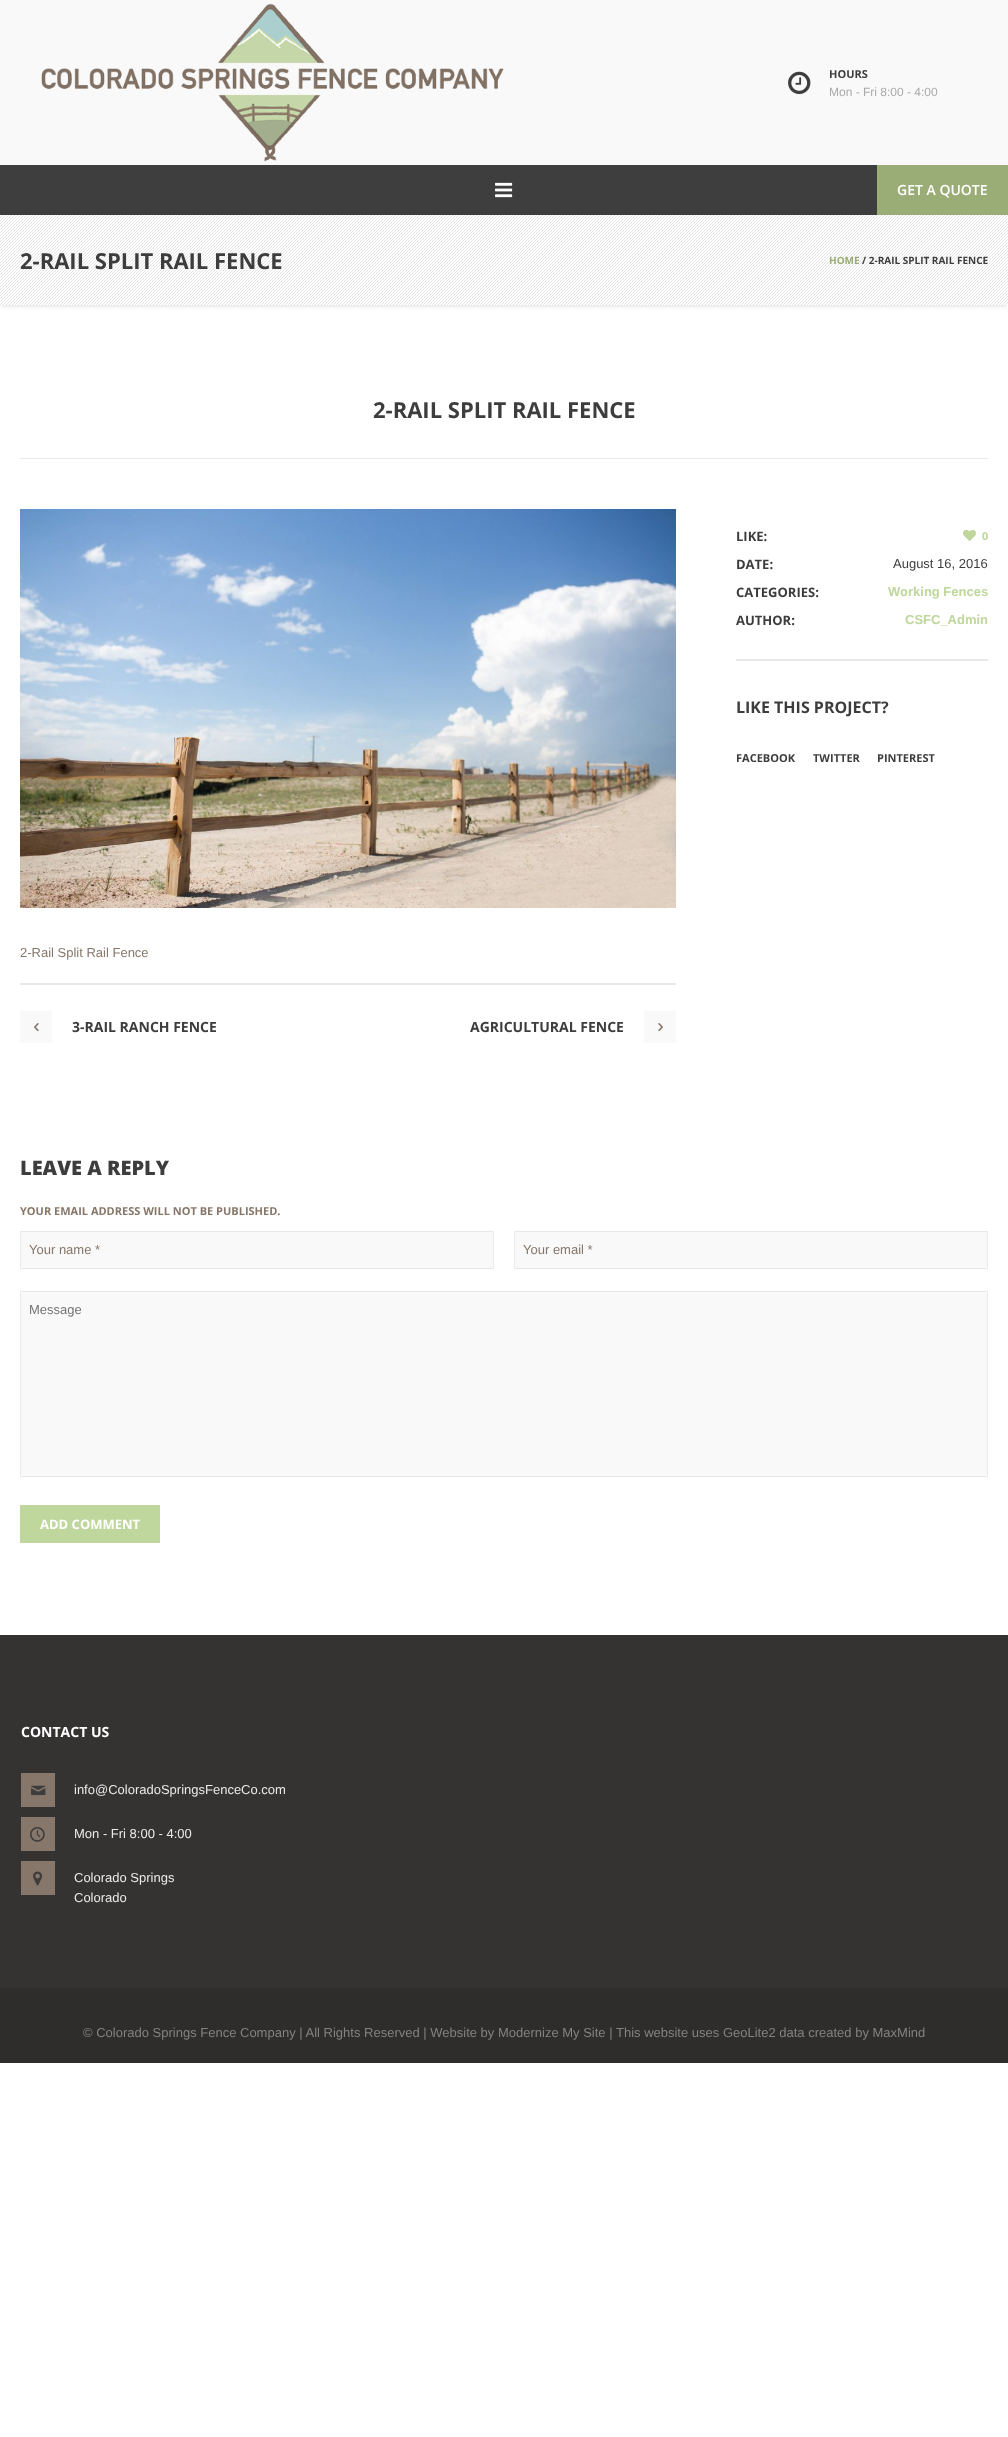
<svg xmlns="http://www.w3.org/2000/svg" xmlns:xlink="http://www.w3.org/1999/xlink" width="1008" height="2437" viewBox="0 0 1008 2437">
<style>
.cls-1{font:bold 11px Open Sans;fill:#3d3d3d}
.cls-2{font:12px Liberation Sans;fill:#aaaaaa}
.cls-3{font:600 14px Open Sans;fill:#ffffff}
.cls-4{font:bold 22px Open Sans;fill:#3d3d3d}
.cls-5{font:bold 10px Open Sans;fill:#9bad77}
.cls-6{font:bold 10px Open Sans;fill:#3d3d3d}
.cls-7{font:bold 13px Open Sans;fill:#3d3d3d}
.cls-8{font:bold 11px Open Sans;fill:#bfd69c}
.cls-9{font:13px Liberation Sans;fill:#3d3d3d}
.cls-10{font:bold 13px Liberation Sans;fill:#bfd69c}
.cls-11{font:bold 16px Open Sans;fill:#3d3d3d}
.cls-12{font:13px Liberation Sans;fill:#86776a}
.cls-13{font:bold 14px Open Sans;fill:#3d3d3d}
.cls-14{font:800 20px Open Sans;fill:#3d3d3d}
.cls-15{font:bold 11px Open Sans;fill:#86776a}
.cls-16{font:13px Liberation Sans;fill:#757575}
.cls-17{font:bold 13px Open Sans;fill:#ffffff}
.cls-18{font:bold 14px Open Sans;fill:#ffffff}
.cls-19{font:13px Liberation Sans;fill:#e9e9e9}
.cls-20{font:13px Liberation Sans;fill:#838282}
</style>
<rect width="100%" height="100%" fill="#ffffff"/>
<rect fill="#f9f9f9" x="0" y="0" width="1008" height="165"/>
<image xlink:href="image0.png" x="41" y="3" width="463" height="159"/>
<image xlink:href="image1.png" x="788" y="71" width="23" height="24"/>
<rect fill="#3e3e3e" x="0" y="165" width="877" height="50"/>
<image xlink:href="image2.png" x="495" y="182" width="18" height="16"/>
<rect fill="#9bad77" x="877" y="165" width="131" height="50"/>
<rect fill="#292929" fill-opacity="0.1" filter="blur(1.5px)" x="2" y="221" width="1004" height="86"/>
<image xlink:href="image3.png" x="0" y="215" width="1008" height="90"/>
<rect fill="#e9e9e9" x="20" y="458" width="968" height="1"/>
<rect fill="#e9e9e9" x="736" y="659" width="252" height="2"/>
<image xlink:href="image4.png" x="963" y="529" width="13" height="12"/>
<image xlink:href="image5.png" x="20" y="509" width="656" height="399"/>
<rect fill="#e9e9e9" x="20" y="983" width="656" height="2"/>
<rect fill="#f9f9f9" x="20" y="1011" width="32" height="32"/>
<image xlink:href="image6.png" x="34" y="1023" width="5" height="9"/>
<rect fill="#f9f9f9" x="644" y="1011" width="32" height="32"/>
<image xlink:href="image7.png" x="658" y="1023" width="5" height="9"/>
<rect fill="#f9f9f9" stroke="#e9e9e9" x="20.5" y="1231.5" width="473" height="37"/>
<rect fill="#f9f9f9" stroke="#e9e9e9" x="514.5" y="1231.5" width="473" height="37"/>
<rect fill="#f9f9f9" stroke="#e9e9e9" x="20.5" y="1291.5" width="967" height="185"/>
<rect fill="#bfd69c" x="20" y="1505" width="140" height="38"/>
<rect fill="#353232" x="0" y="1635" width="1008" height="353"/>
<rect fill="#86776a" x="21" y="1773" width="34" height="34"/>
<image xlink:href="image8.png" x="31" y="1785" width="15" height="11"/>
<rect fill="#86776a" x="21" y="1817" width="34" height="34"/>
<image xlink:href="image9.png" x="30" y="1827" width="15" height="15"/>
<rect fill="#86776a" x="21" y="1861" width="34" height="34"/>
<image xlink:href="image10.png" x="33" y="1871" width="10" height="15"/>
<rect fill="#2f2c2c" x="0" y="1988" width="1008" height="75"/>
<text class="cls-1" x="829" y="78">HOURS</text>
<text class="cls-2" x="829" y="96">Mon - Fri 8:00 - 4:00</text>
<text class="cls-3" x="897" y="195">GET A QUOTE</text>
<text class="cls-4" x="20" y="269">2-RAIL SPLIT RAIL FENCE</text>
<text class="cls-5" x="829" y="264">HOME</text>
<text class="cls-6" x="862" y="264">/ 2-RAIL SPLIT RAIL FENCE</text>
<text class="cls-4" x="373" y="418">2-RAIL SPLIT RAIL FENCE</text>
<text class="cls-7" x="736" y="541">LIKE:</text>
<text class="cls-8" x="982" y="540">0</text>
<text class="cls-7" x="736" y="569">DATE:</text>
<text class="cls-9" x="893" y="568">August 16, 2016</text>
<text class="cls-7" x="736" y="597">CATEGORIES:</text>
<text class="cls-10" x="888" y="596">Working Fences</text>
<text class="cls-7" x="736" y="625">AUTHOR:</text>
<text class="cls-10" x="905" y="624">CSFC_Admin</text>
<text class="cls-11" x="736" y="713">LIKE THIS PROJECT?</text>
<text class="cls-1" x="736" y="762">FACEBOOK</text>
<text class="cls-1" x="813" y="762">TWITTER</text>
<text class="cls-1" x="877" y="762">PINTEREST</text>
<text class="cls-12" x="20" y="957">2-Rail Split Rail Fence</text>
<text class="cls-13" x="72" y="1032">3-RAIL RANCH FENCE</text>
<text class="cls-13" x="470" y="1032">AGRICULTURAL FENCE</text>
<text class="cls-14" x="20" y="1175">LEAVE A REPLY</text>
<text class="cls-15" x="20" y="1215">YOUR EMAIL ADDRESS WILL NOT BE PUBLISHED.</text>
<text class="cls-12" x="29" y="1254">Your name *</text>
<text class="cls-12" x="523" y="1254">Your email *</text>
<text class="cls-16" x="29" y="1314">Message</text>
<text class="cls-17" x="40" y="1529">ADD COMMENT</text>
<text class="cls-18" x="21" y="1737">CONTACT US</text>
<text class="cls-19" x="74" y="1794">info@ColoradoSpringsFenceCo.com</text>
<text class="cls-19" x="74" y="1838">Mon - Fri 8:00 - 4:00</text>
<text class="cls-19"><tspan x="74" y="1882">Colorado Springs</tspan><tspan x="74" y="1902">Colorado</tspan></text>
<text class="cls-20" x="83" y="2037">© Colorado Springs Fence Company | All Rights Reserved | Website by Modernize My Site | This website uses GeoLite2 data created by MaxMind</text>
</svg>
